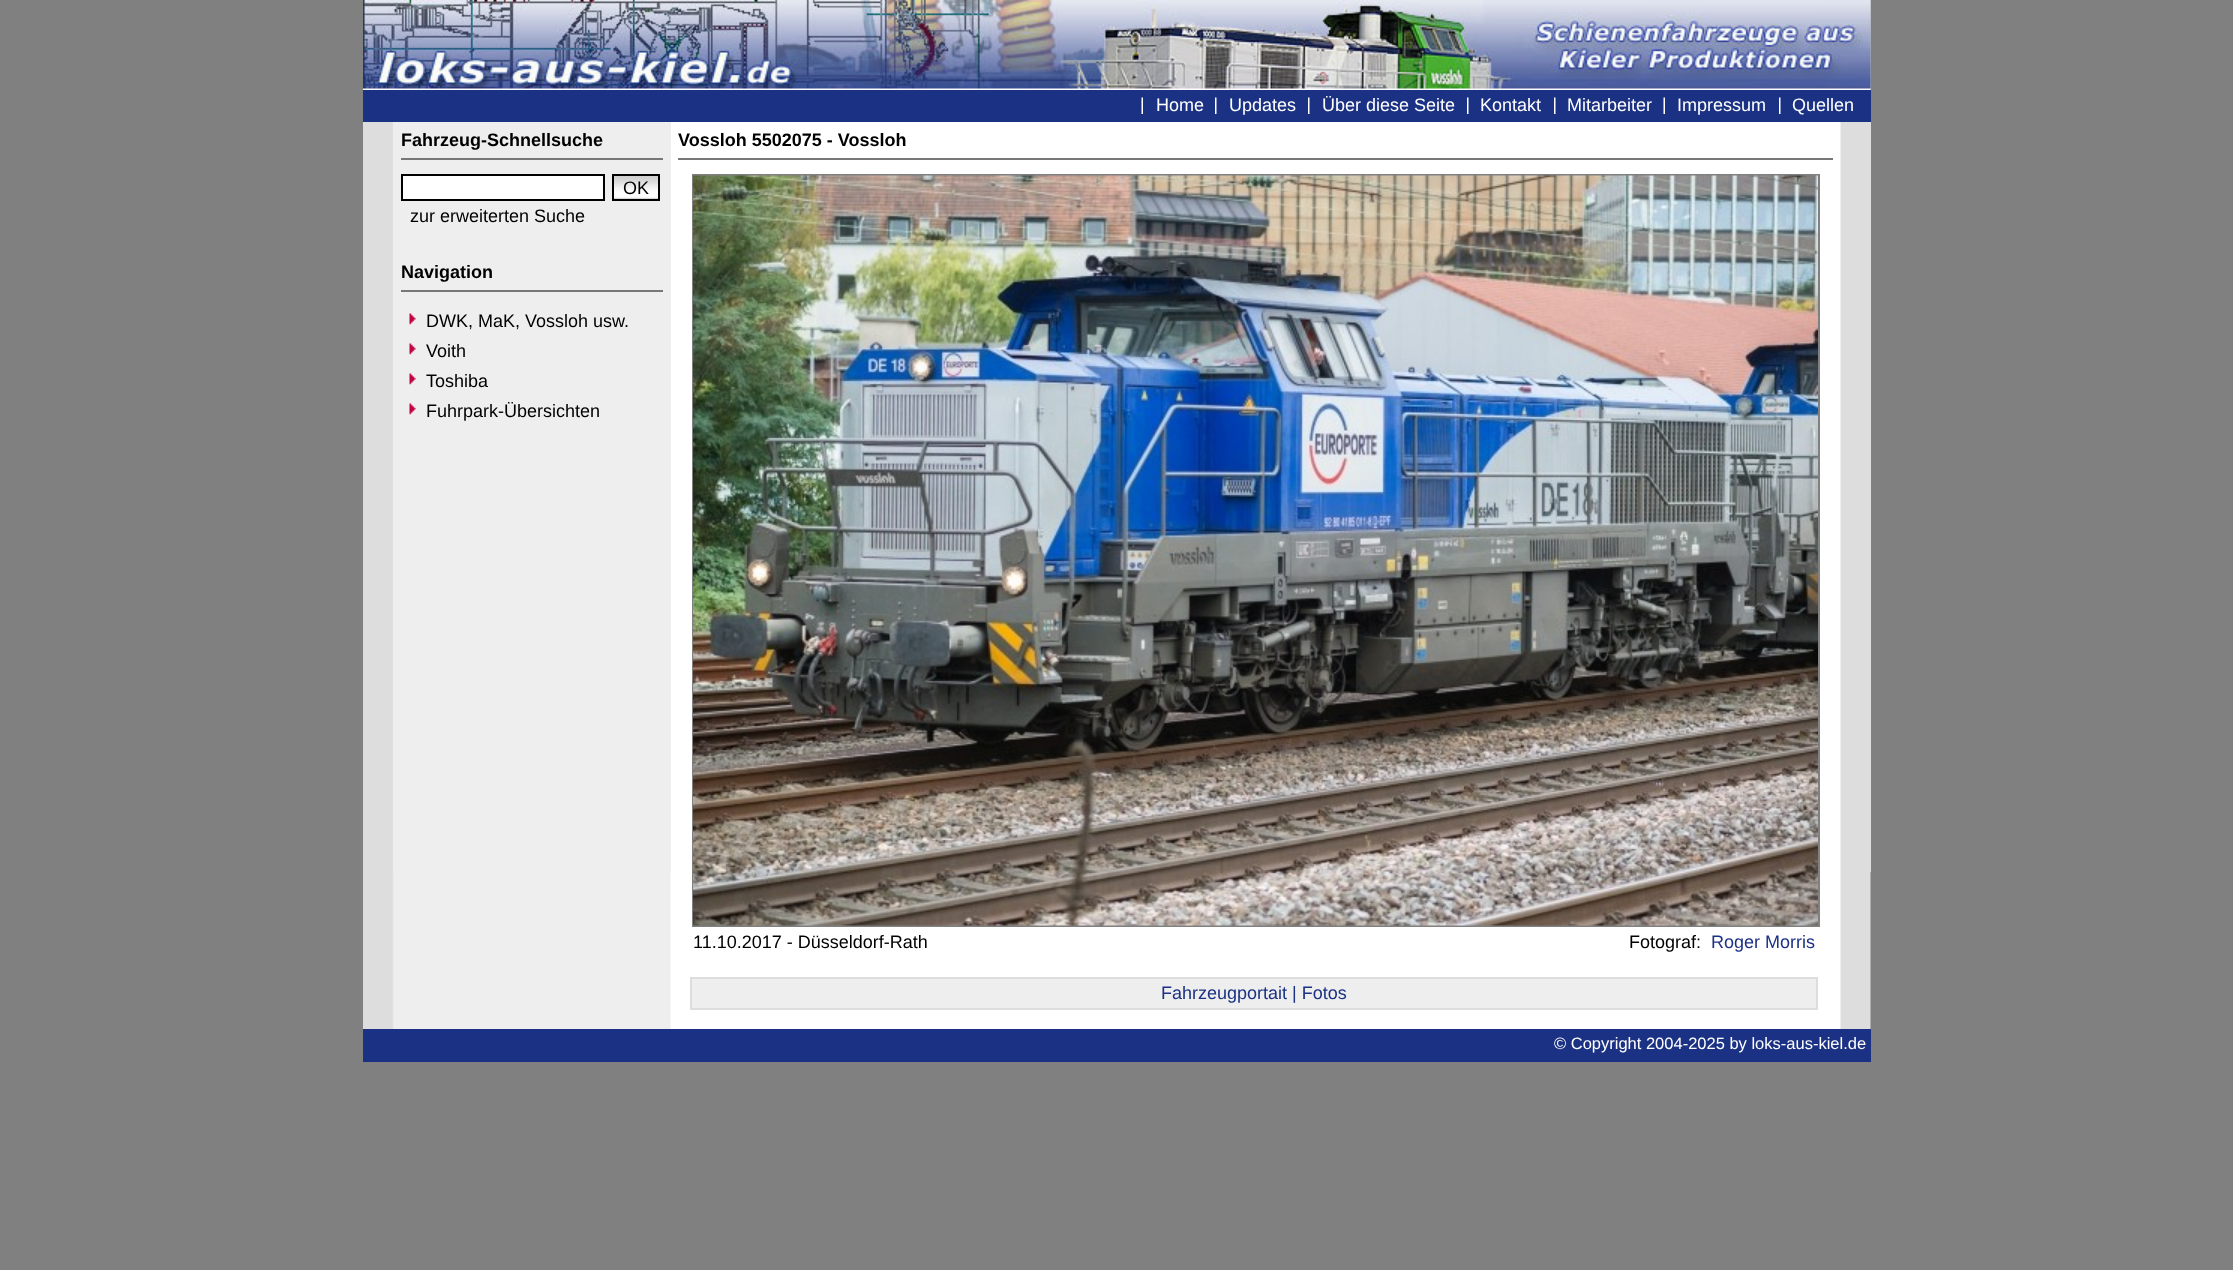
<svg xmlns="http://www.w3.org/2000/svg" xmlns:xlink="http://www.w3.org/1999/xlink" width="2233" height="1270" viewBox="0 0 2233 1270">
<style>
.cls-1{font:18px Liberation Sans;fill:#ffffff}
.cls-2{font:bold 18px Liberation Sans;fill:#000000}
.cls-3{font:18px Liberation Sans;fill:#000000}
.cls-4{font:18px Liberation Sans;fill:#1b3284}
.cls-5{font:16.5px Liberation Sans;fill:#ffffff}
</style>
<rect width="100%" height="100%" fill="#808080"/>
<image xlink:href="image0.png" x="363" y="0" width="1508" height="1029"/>
<image xlink:href="image1.png" x="363" y="0" width="1508" height="90"/>
<rect fill="#1b3284" x="363" y="90" width="1508" height="32"/>
<image xlink:href="image2.png" x="1141" y="97" width="2" height="17"/>
<image xlink:href="image3.png" x="1215" y="97" width="2" height="17"/>
<image xlink:href="image3.png" x="1308" y="97" width="2" height="17"/>
<image xlink:href="image3.png" x="1467" y="97" width="2" height="17"/>
<image xlink:href="image3.png" x="1554" y="97" width="2" height="17"/>
<image xlink:href="image2.png" x="1663" y="97" width="2" height="17"/>
<image xlink:href="image3.png" x="1779" y="97" width="2" height="17"/>
<rect fill="#eeeeee" x="393" y="122" width="278" height="750"/>
<rect fill="#777777" x="401" y="158" width="262" height="2"/>
<rect fill="#ffffff" stroke="#000000" stroke-width="2" x="402" y="175" width="202" height="25"/>
<image xlink:href="image4.png" x="614" y="176" width="44" height="23"/>
<rect fill="none" stroke="#000000" stroke-width="2" x="613" y="175" width="46" height="25"/>
<rect fill="#777777" x="401" y="290" width="262" height="2"/>
<image xlink:href="image5.png" x="409" y="313" width="7" height="12"/>
<image xlink:href="image5.png" x="409" y="343" width="7" height="12"/>
<image xlink:href="image5.png" x="409" y="373" width="7" height="12"/>
<image xlink:href="image5.png" x="409" y="403" width="7" height="12"/>
<rect fill="#777777" x="678" y="158" width="1155" height="2"/>
<rect fill="none" stroke="#808080" stroke-width="2" x="693" y="175" width="1126" height="751"/>
<image xlink:href="image6.png" x="693" y="175" width="1125" height="751"/>
<rect fill="#eeeeee" stroke="#dddddd" stroke-width="2" x="691" y="978" width="1126" height="31"/>
<rect fill="#dddddd" x="1870" y="122" width="1" height="750"/>
<rect fill="#1b3284" x="363" y="1029" width="1508" height="33"/>
<text class="cls-1" x="1156" y="111">Home</text>
<text class="cls-1" x="1229" y="111">Updates</text>
<text class="cls-1" x="1322" y="111">Über diese Seite</text>
<text class="cls-1" x="1480" y="111">Kontakt</text>
<text class="cls-1" x="1567" y="111">Mitarbeiter</text>
<text class="cls-1" x="1677" y="111">Impressum</text>
<text class="cls-1" x="1792" y="111">Quellen</text>
<text class="cls-2" x="401" y="146">Fahrzeug-Schnellsuche</text>
<text class="cls-3" x="623" y="194">OK</text>
<text class="cls-3" x="410" y="222">zur erweiterten Suche</text>
<text class="cls-2" x="401" y="278">Navigation</text>
<text class="cls-3"><tspan x="426" y="327">DWK, MaK, Vossloh usw.</tspan><tspan x="426" y="357">Voith</tspan><tspan x="426" y="387">Toshiba</tspan><tspan x="426" y="417">Fuhrpark-Übersichten</tspan></text>
<text class="cls-2" x="678" y="146">Vossloh 5502075 - Vossloh</text>
<text class="cls-3" x="693" y="948">11.10.2017 - Düsseldorf-Rath</text>
<text class="cls-3" x="1629" y="948">Fotograf:</text>
<text class="cls-4" x="1711" y="948">Roger Morris</text>
<text class="cls-4" x="1161" y="999">Fahrzeugportait | Fotos</text>
<text class="cls-5" x="1554" y="1049">© Copyright 2004-2025 by loks-aus-kiel.de</text>
</svg>
